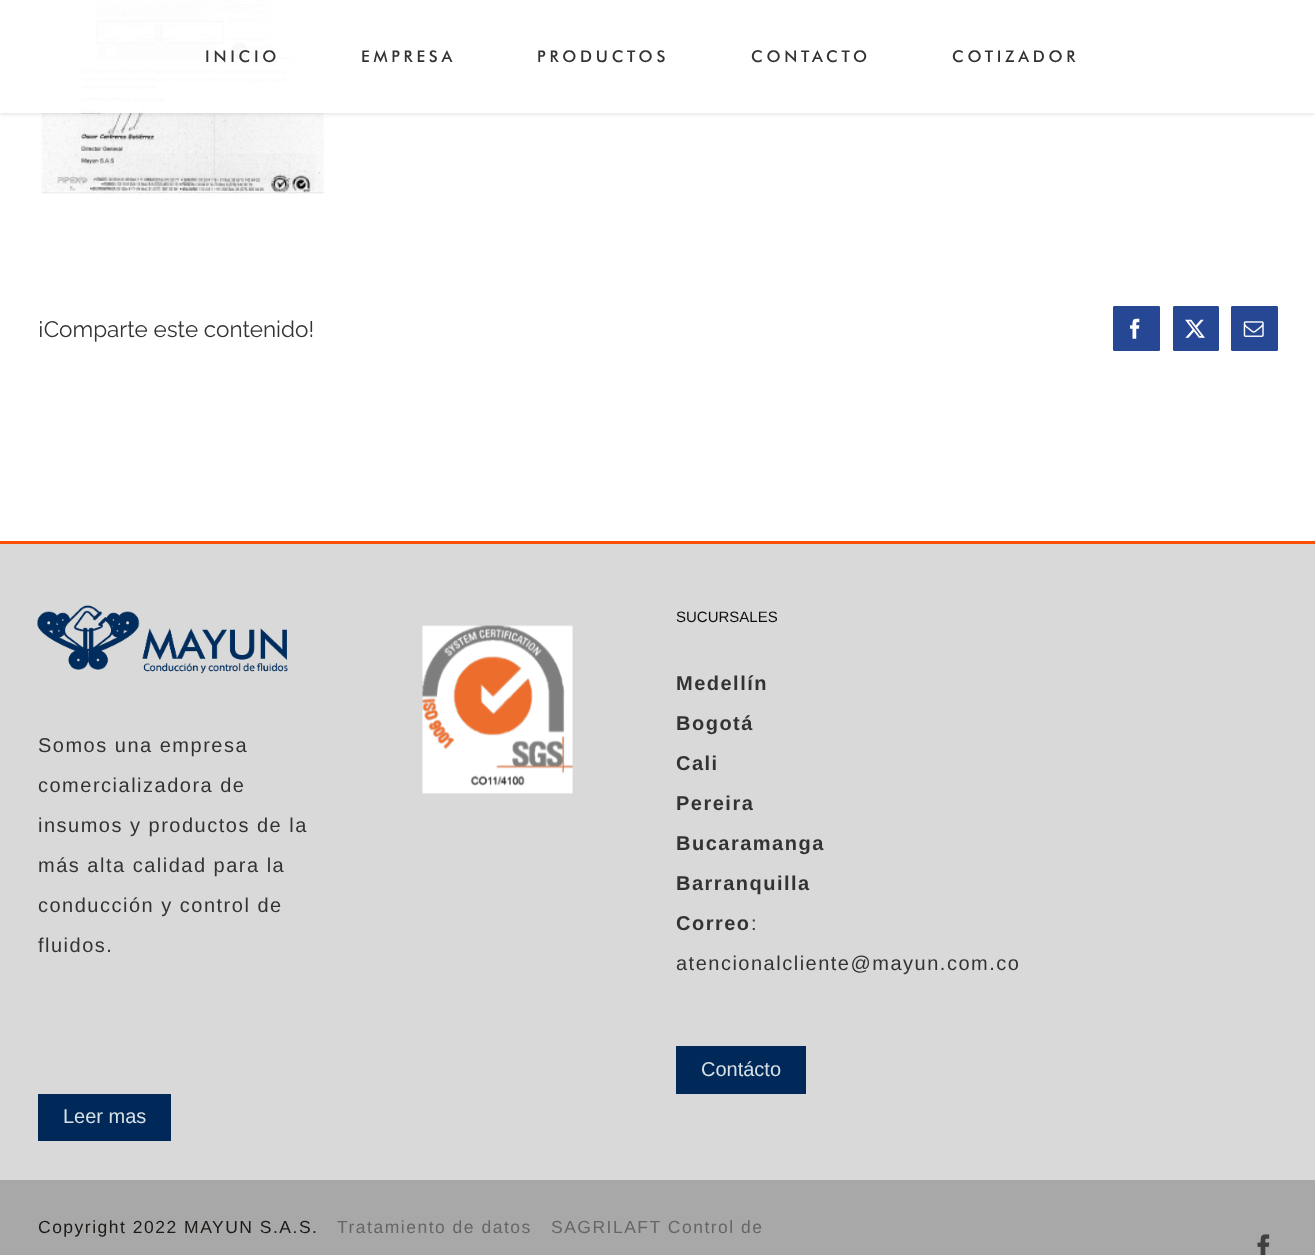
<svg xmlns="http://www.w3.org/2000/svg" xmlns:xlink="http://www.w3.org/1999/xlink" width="1315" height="1255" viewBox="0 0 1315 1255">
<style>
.cls-1{font:500 16.25px Futura;letter-spacing:3.75px;fill:#333333}
.cls-2{font:100 22.5px Raleway;fill:#333333}
.cls-3{font:15px Liberation Sans;fill:#0f0f0f}
.cls-4{font:bold 20px Liberation Sans;letter-spacing:1.5px;fill:#333333}
.cls-5{font:20px Liberation Sans;letter-spacing:1.5px;fill:#333333}
.cls-6{font:20px Liberation Sans;fill:#d7e0e5}
.cls-7{font:17.5px Liberation Sans;letter-spacing:1.5px;fill:#1c1917}
.cls-8{font:17.5px Liberation Sans;letter-spacing:1.5px;fill:#666666}
</style>
<defs>
<clipPath id="clip1"><path d="M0 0H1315V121H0ZM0 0H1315V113H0Z" clip-rule="evenodd"/></clipPath>
</defs>
<rect width="100%" height="100%" fill="#ffffff"/>
<image xlink:href="image0.png" x="41" y="0" width="283" height="194"/>
<g clip-path="url(#clip1)">
<rect fill="#000000" fill-opacity="0.12" filter="blur(2px)" x="0" y="1" width="1315" height="113"/>
</g>
<rect fill="#ffffff" fill-opacity="0.97" x="0" y="0" width="1315" height="113"/>
<rect fill="#264793" stroke="#264793" x="1113.5" y="306.5" width="46" height="44" rx="0.5"/>
<image xlink:href="image1.png" x="1130" y="318" width="10" height="21"/>
<rect fill="#264793" stroke="#264793" x="1173.5" y="306.5" width="45" height="44" rx="0.5"/>
<image xlink:href="image2.png" x="1185" y="319" width="20" height="19"/>
<rect fill="#264793" stroke="#264793" x="1231.5" y="306.5" width="46" height="44" rx="0.5"/>
<image xlink:href="image3.png" x="1243" y="321" width="21" height="16"/>
<rect fill="#d8d9d8" x="0" y="544" width="1315" height="635"/>
<rect fill="#ff5000" x="0" y="541" width="1315" height="3"/>
<image xlink:href="image4.png" x="422" y="625" width="151" height="169"/>
<rect fill="#00295a" x="676" y="1046" width="130" height="48"/>
<image xlink:href="image5.png" x="37" y="605" width="251" height="69"/>
<rect fill="#00295a" x="38" y="1094" width="133" height="47"/>
<rect fill="#a8a8a8" x="0" y="1180" width="1315" height="75"/>
<rect fill="#d6d7d6" x="0" y="1179" width="1315" height="1"/>
<image xlink:href="image6.png" x="1257" y="1234" width="13" height="21"/>
<text class="cls-1" x="205" y="62">INICIO</text>
<text class="cls-1" x="361" y="62">EMPRESA</text>
<text class="cls-1" x="537" y="62">PRODUCTOS</text>
<text class="cls-1" x="751" y="62">CONTACTO</text>
<text class="cls-1" x="952" y="62">COTIZADOR</text>
<text class="cls-2" x="38" y="337">¡Comparte este contenido!</text>
<text class="cls-3" x="676" y="622">SUCURSALES</text>
<text class="cls-4" x="676" y="690">Medellín</text>
<text class="cls-4" x="676" y="730">Bogotá</text>
<text class="cls-4" x="676" y="770">Cali</text>
<text class="cls-4" x="676" y="810">Pereira</text>
<text class="cls-4" x="676" y="850">Bucaramanga</text>
<text class="cls-4" x="676" y="890">Barranquilla</text>
<text class="cls-4" x="676" y="930">Correo</text>
<text class="cls-5" x="751" y="930">:</text>
<text class="cls-5" x="676" y="970">atencionalcliente@mayun.com.co</text>
<text class="cls-6" x="701" y="1076">Contácto</text>
<text class="cls-5" x="38" y="752">Somos una empresa</text>
<text class="cls-5" x="38" y="792">comercializadora de</text>
<text class="cls-5" x="38" y="832">insumos y productos de la</text>
<text class="cls-5" x="38" y="872">más alta calidad para la</text>
<text class="cls-5" x="38" y="912">conducción y control de</text>
<text class="cls-5" x="38" y="952">fluidos.</text>
<text class="cls-6" x="63" y="1123">Leer mas</text>
<text class="cls-7" x="38" y="1233">Copyright 2022 MAYUN S.A.S.</text>
<text class="cls-8" x="337" y="1233">Tratamiento de datos</text>
<text class="cls-8" x="551" y="1233">SAGRILAFT Control de</text>
</svg>
